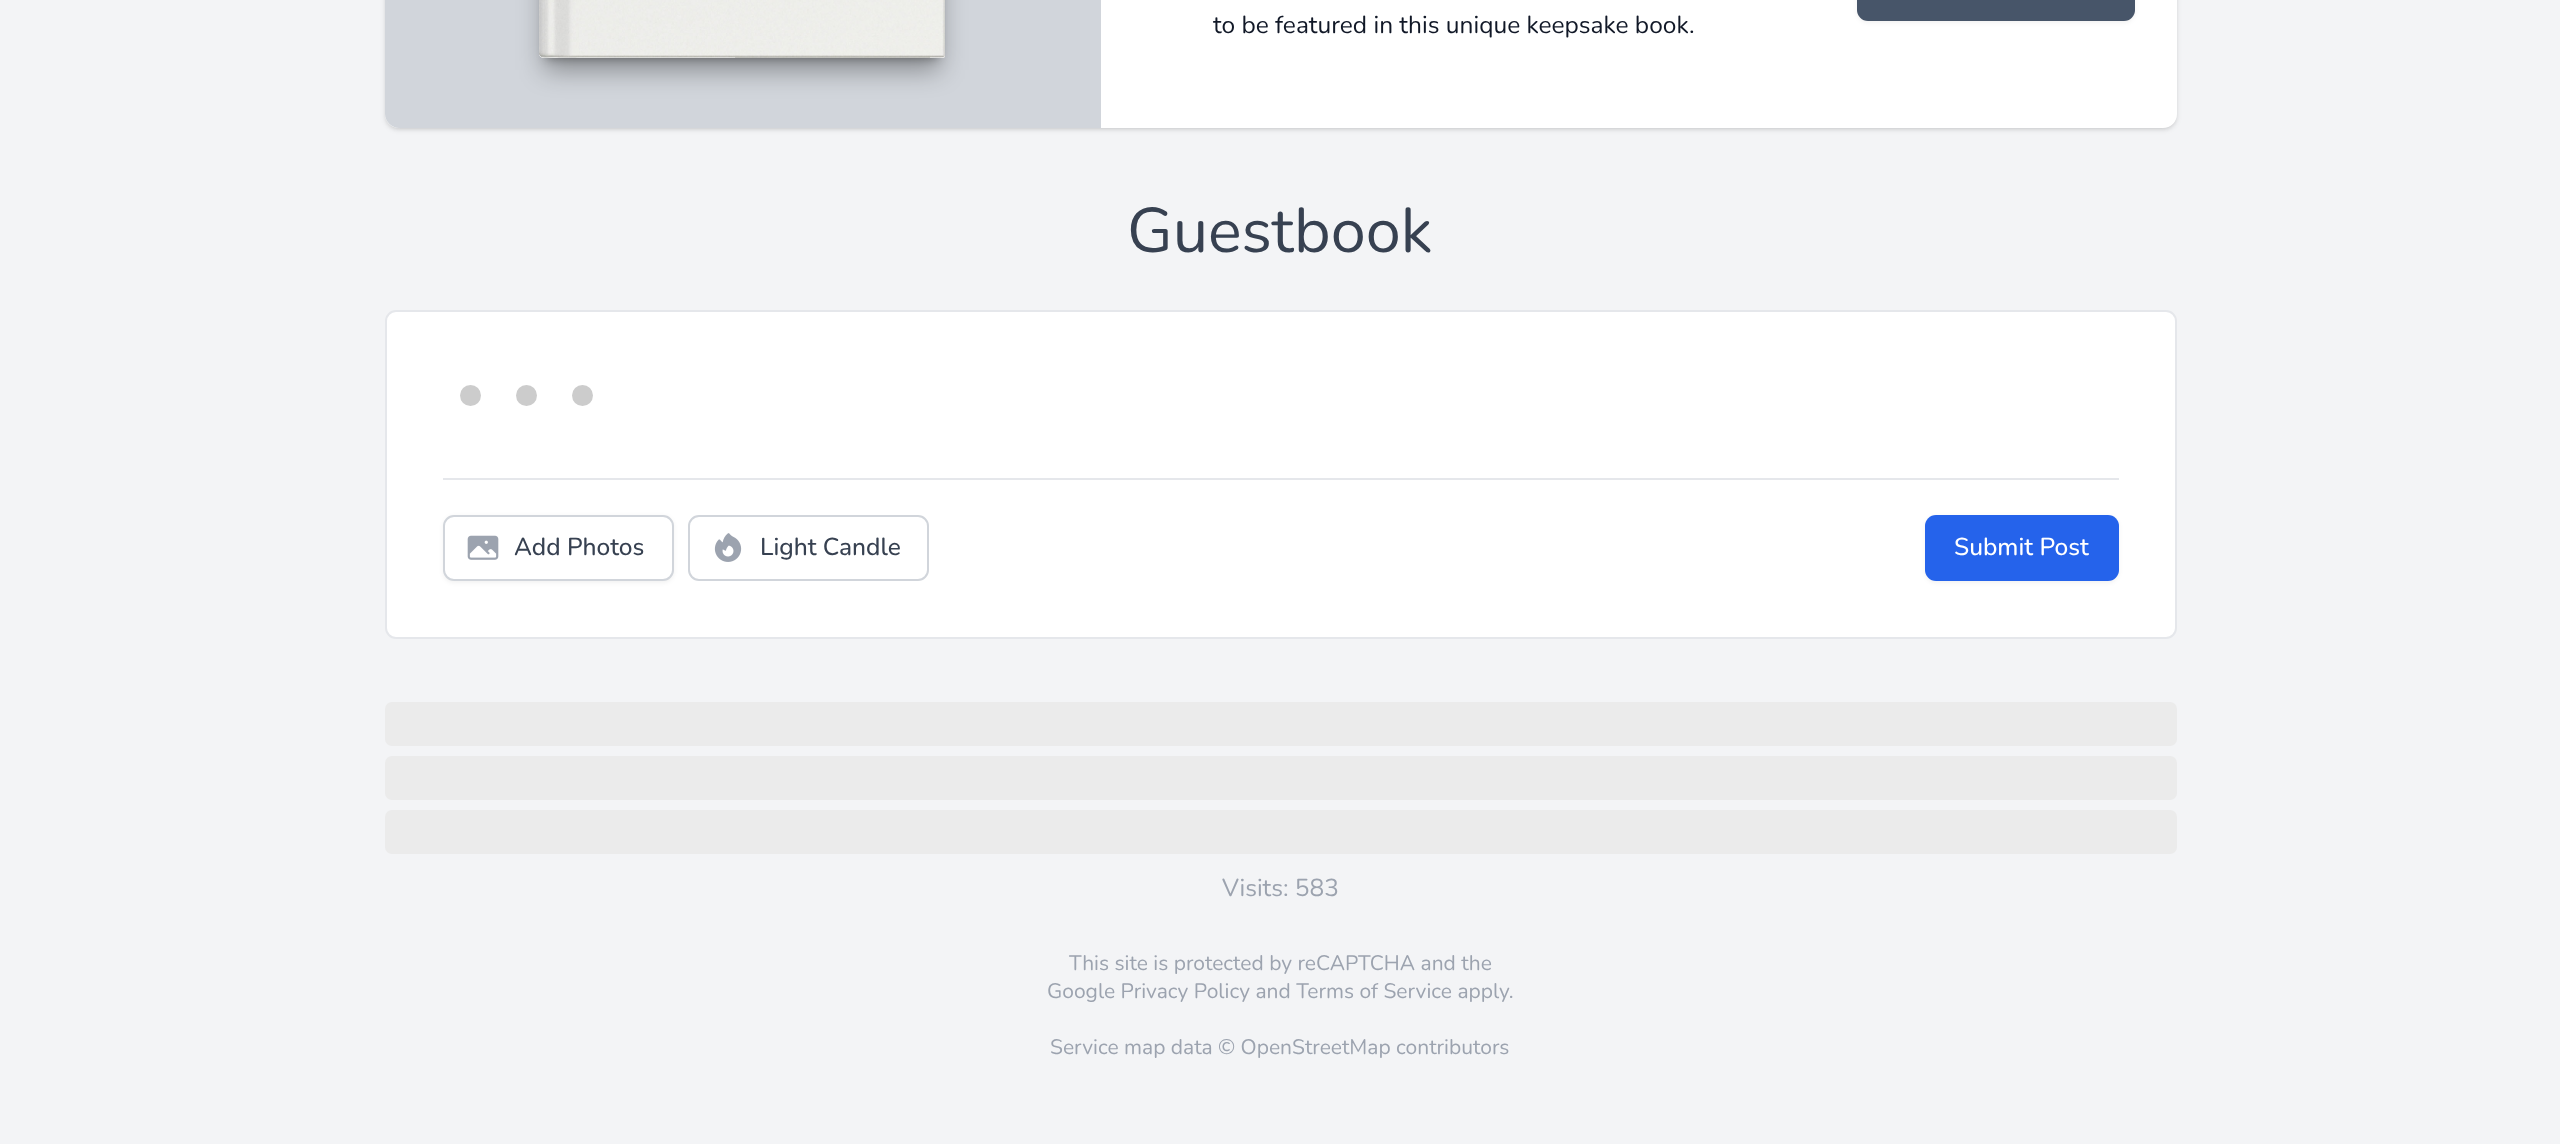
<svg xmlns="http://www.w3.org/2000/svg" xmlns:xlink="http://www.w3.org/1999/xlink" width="2560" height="1144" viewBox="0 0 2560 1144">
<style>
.cls-1{font:24.5px Nunito;fill:#111827}
.cls-2{font:63px Nunito;fill:#374151}
.cls-3{font:500 24.5px Nunito;fill:#374151}
.cls-4{font:500 24.5px Nunito;fill:#ffffff}
.cls-5{font:24.5px Nunito;fill:#9ca3af}
.cls-6{font:21px Nunito;fill:#9ca3af}
</style>
<rect width="100%" height="100%" fill="#f3f4f6"/>
<rect fill="#000000" fill-opacity="0.1" filter="blur(2px)" x="387" y="-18" width="1788" height="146" rx="12"/>
<rect fill="#000000" fill-opacity="0.1" filter="blur(2.5px)" x="385" y="-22" width="1792" height="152" rx="14"/>
<rect fill="#ffffff" x="385" y="-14" width="1792" height="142" rx="14"/>
<path fill="#d1d5db" d="M399-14H1101V128H399C391.5 128 385 121.5 385 114V0C385-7.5 391.5-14 399-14Z"/>
<rect fill="#000000" fill-opacity="0.35" filter="blur(5px)" x="546" y="-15" width="392" height="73"/>
<rect fill="#000000" fill-opacity="0.35" filter="blur(13px)" x="544" y="-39" width="396" height="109"/>
<path fill="#ffffff" d="M544-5H941C943-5 945-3 945-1V56C945 57 944 58 943 58H544C541 58 539 56 539 53V0C539-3 541-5 544-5Z"/>
<image xlink:href="image0.png" x="539" y="0" width="406" height="58"/>
<image xlink:href="image1.png" x="539" y="0" width="406" height="58"/>
<rect fill="#000000" fill-opacity="0.05" filter="blur(2px)" x="1857" y="-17" width="278" height="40" rx="11"/>
<rect fill="#475569" x="1857" y="-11" width="278" height="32" rx="11"/>
<rect fill="#ffffff" stroke="#e5e7eb" stroke-width="2" x="386" y="311" width="1790" height="327" rx="10"/>
<circle fill="#cccccc" cx="470.5" cy="395.5" r="10.5"/>
<circle fill="#cccccc" cx="526.5" cy="395.5" r="10.5"/>
<circle fill="#cccccc" cx="582.5" cy="395.5" r="10.5"/>
<rect fill="#e5e7eb" x="443" y="478" width="1676" height="2"/>
<rect fill="#000000" fill-opacity="0.05" filter="blur(2px)" x="443" y="516" width="231" height="67" rx="11"/>
<rect fill="#ffffff" stroke="#d1d5db" stroke-width="2" x="444" y="516" width="229" height="64" rx="10"/>
<image xlink:href="image2.png" x="467" y="535" width="32" height="25"/>
<rect fill="none" stroke="#d1d5db" stroke-width="2" x="689" y="516" width="239" height="64" rx="10"/>
<image xlink:href="image3.png" x="714" y="533" width="28" height="29"/>
<rect fill="#000000" fill-opacity="0.05" filter="blur(2px)" x="1925" y="516" width="194" height="67" rx="11"/>
<rect fill="#2563eb" x="1925" y="515" width="194" height="66" rx="11"/>
<rect fill="#ebebeb" x="385" y="702" width="1792" height="44" rx="7"/>
<rect fill="#ebebeb" x="385" y="756" width="1792" height="44" rx="7"/>
<rect fill="#ebebeb" x="385" y="810" width="1792" height="44" rx="7"/>
<text class="cls-1" x="1213" y="33">to be featured in this unique keepsake book.</text>
<text class="cls-2" x="1127" y="252">Guestbook</text>
<text class="cls-3" x="514" y="555">Add Photos</text>
<text class="cls-3" x="760" y="555">Light Candle</text>
<text class="cls-4" x="1954" y="555">Submit Post</text>
<text class="cls-5" x="1222" y="896">Visits: 583</text>
<text class="cls-6" x="1069" y="970">This site is protected by reCAPTCHA and the</text>
<text class="cls-6" x="1047" y="998">Google Privacy Policy and Terms of Service apply.</text>
<text class="cls-6" x="1050" y="1054">Service map data © OpenStreetMap contributors</text>
</svg>
